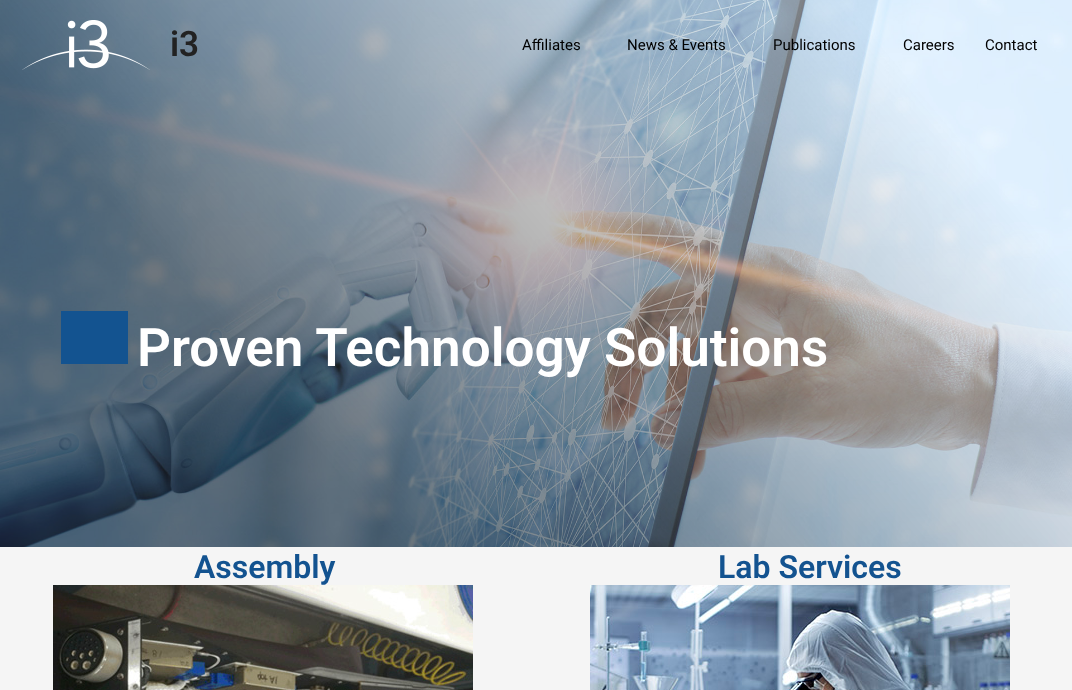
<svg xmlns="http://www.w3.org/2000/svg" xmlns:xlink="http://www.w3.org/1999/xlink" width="1072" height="690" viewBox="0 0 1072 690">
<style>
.cls-1{font:600 35px Roboto;fill:#222222}
.cls-2{font:15px Roboto;fill:#000000}
.cls-3{font:600 53px Roboto;fill:#ffffff}
.cls-4{font:600 32px Roboto;fill:#135390}
</style>
<rect width="100%" height="100%" fill="#f5f5f5"/>
<image xlink:href="image1.png" x="0" y="0" width="1072" height="547"/>
<image xlink:href="image0.png" x="22" y="20" width="128" height="50"/>
<rect fill="#135390" x="61" y="311" width="67" height="53"/>
<image xlink:href="image2.png" x="53" y="585" width="420" height="105"/>
<image xlink:href="image3.png" x="590" y="585" width="420" height="105"/>
<text class="cls-1" x="170" y="56">i3</text>
<text class="cls-2" x="522" y="50">Affiliates</text>
<text class="cls-2" x="627" y="50">News &amp; Events</text>
<text class="cls-2" x="773" y="50">Publications</text>
<text class="cls-2" x="903" y="50">Careers</text>
<text class="cls-2" x="985" y="50">Contact</text>
<text class="cls-3" x="137" y="366">Proven Technology Solutions</text>
<text class="cls-4" x="194" y="578">Assembly</text>
<text class="cls-4" x="718" y="578">Lab Services</text>
</svg>
